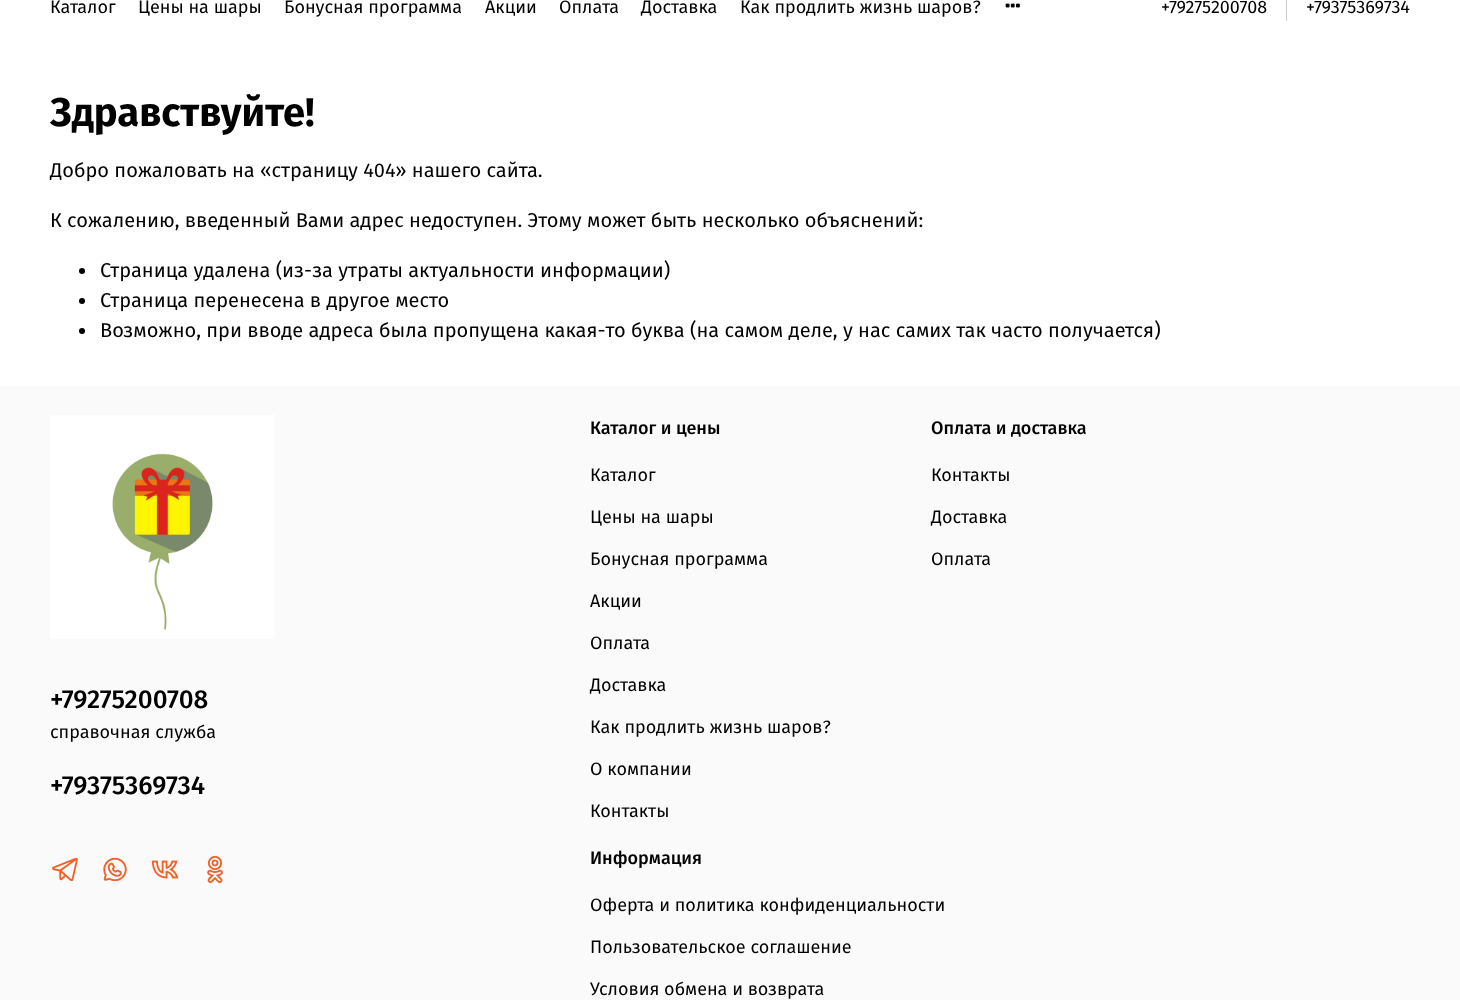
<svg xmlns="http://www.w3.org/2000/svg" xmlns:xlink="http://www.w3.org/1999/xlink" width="1460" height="1000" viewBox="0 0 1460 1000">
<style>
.cls-1{font:18px Fira Sans;fill:#000000}
.cls-2{font:bold 40px Fira Sans;fill:#000000}
.cls-3{font:20px Fira Sans;fill:#000000}
.cls-4{font:500 26px Fira Sans;fill:#000000}
.cls-5{font:500 18px Fira Sans;fill:#000000}
</style>
<rect width="100%" height="100%" fill="#ffffff"/>
<image xlink:href="image0.png" x="1005" y="3" width="15" height="5"/>
<rect fill="#cccccc" x="1286" y="0" width="1" height="21"/>
<circle fill="#000000" cx="82" cy="271" r="3"/>
<circle fill="#000000" cx="82" cy="301" r="3"/>
<circle fill="#000000" cx="82" cy="331" r="3"/>
<rect fill="#fafafa" x="0" y="386" width="1460" height="614"/>
<image xlink:href="image1.png" x="50" y="415" width="225" height="224"/>
<image xlink:href="image2.png" x="52" y="857" width="26" height="25"/>
<image xlink:href="image3.png" x="103" y="857" width="24" height="25"/>
<image xlink:href="image4.png" x="151" y="860" width="28" height="19"/>
<image xlink:href="image5.png" x="207" y="855" width="16" height="29"/>
<text class="cls-1" x="50" y="13">Каталог</text>
<text class="cls-1" x="138" y="13">Цены на шары</text>
<text class="cls-1" x="284" y="13">Бонусная программа</text>
<text class="cls-1" x="485" y="13">Акции</text>
<text class="cls-1" x="559" y="13">Оплата</text>
<text class="cls-1" x="641" y="13">Доставка</text>
<text class="cls-1" x="740" y="13">Как продлить жизнь шаров?</text>
<text class="cls-1" x="1161" y="13">+79275200708</text>
<text class="cls-1" x="1306" y="13">+79375369734</text>
<text class="cls-2" x="50" y="126">Здравствуйте!</text>
<text class="cls-3" x="50" y="177">Добро пожаловать на «страницу 404» нашего сайта.</text>
<text class="cls-3" x="50" y="227">К сожалению, введенный Вами адрес недоступен. Этому может быть несколько объяснений:</text>
<text class="cls-3"><tspan x="100" y="277">Страница удалена (из-за утраты актуальности информации)</tspan><tspan x="100" y="307">Страница перенесена в другое место</tspan><tspan x="100" y="337">Возможно, при вводе адреса была пропущена какая-то буква (на самом деле, у нас самих так часто получается)</tspan></text>
<text class="cls-4" x="50" y="708">+79275200708</text>
<text class="cls-1" x="50" y="738">справочная служба</text>
<text class="cls-4" x="50" y="794">+79375369734</text>
<text class="cls-5" x="590" y="434">Каталог и цены</text>
<text class="cls-1" x="590" y="481">Каталог</text>
<text class="cls-1" x="590" y="523">Цены на шары</text>
<text class="cls-1" x="590" y="565">Бонусная программа</text>
<text class="cls-1" x="590" y="607">Акции</text>
<text class="cls-1" x="590" y="649">Оплата</text>
<text class="cls-1" x="590" y="691">Доставка</text>
<text class="cls-1" x="590" y="733">Как продлить жизнь шаров?</text>
<text class="cls-1" x="590" y="775">О компании</text>
<text class="cls-1" x="590" y="817">Контакты</text>
<text class="cls-5" x="931" y="434">Оплата и доставка</text>
<text class="cls-1" x="931" y="481">Контакты</text>
<text class="cls-1" x="931" y="523">Доставка</text>
<text class="cls-1" x="931" y="565">Оплата</text>
<text class="cls-5" x="590" y="864">Информация</text>
<text class="cls-1" x="590" y="911">Оферта и политика конфиденциальности</text>
<text class="cls-1" x="590" y="953">Пользовательское соглашение</text>
<text class="cls-1" x="590" y="995">Условия обмена и возврата</text>
</svg>
